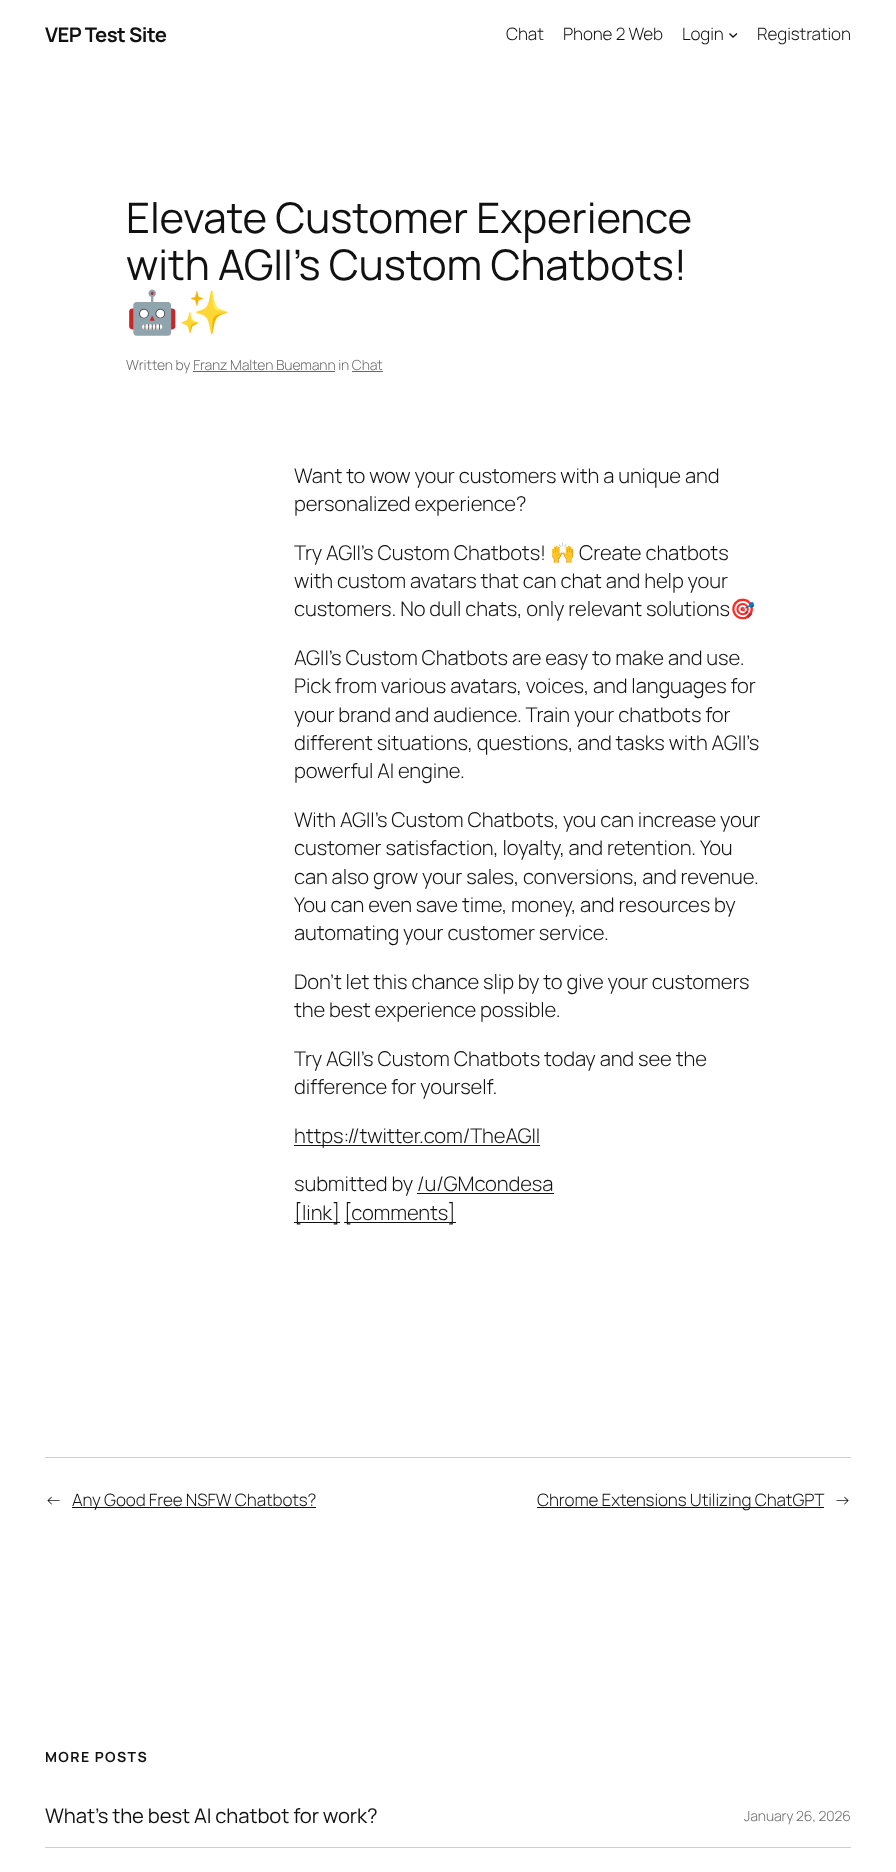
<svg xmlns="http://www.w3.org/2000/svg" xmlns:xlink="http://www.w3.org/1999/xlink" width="896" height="1872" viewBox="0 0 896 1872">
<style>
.cls-1{font:bold 20.25px Manrope;letter-spacing:-0.5px;fill:#111111}
.cls-2{font:300 17.1px Manrope;letter-spacing:-0.1px;fill:#111111}
.cls-3{font:42.1px Manrope;letter-spacing:-0.1px;fill:#111111}
.cls-4{font:42.1px Noto Color Emoji;letter-spacing:-0.1px;fill:#111111}
.cls-5{font:300 14px Manrope;letter-spacing:-0.1px;fill:#686868}
.cls-6{font:300 20.25px Manrope;letter-spacing:-0.1px;fill:#111111}
.cls-7{font:20.25px Noto Color Emoji;letter-spacing:-0.1px;fill:#111111}
.cls-8{font:bold 14px Manrope;letter-spacing:1.4px;fill:#111111}
.cls-9{font:20.25px Manrope;letter-spacing:-0.1px;fill:#111111}
</style>
<rect width="100%" height="100%" fill="#ffffff"/>
<path fill="none" stroke="#111111" stroke-width="1.3" d="M729.5 33.5L733 37L737 33.5"/>
<rect fill="#686868" x="193" y="371" width="142" height="1"/>
<rect fill="#686868" x="352" y="371" width="31" height="1"/>
<rect fill="#111111" x="294" y="1145" width="246" height="1"/>
<rect fill="#111111" x="417" y="1193" width="137" height="1"/>
<rect fill="#111111" x="294" y="1222" width="46" height="1"/>
<rect fill="#111111" x="344" y="1222" width="112" height="1"/>
<rect fill="#cfcfcf" x="45" y="1457" width="806" height="1"/>
<rect fill="#111111" x="72" y="1507" width="244" height="1"/>
<rect fill="#111111" x="537" y="1507" width="287" height="1"/>
<rect fill="#cfcfcf" x="45" y="1847" width="806" height="1"/>
<text class="cls-1" x="45" y="42">VEP Test Site</text>
<text class="cls-2" x="506" y="40">Chat</text>
<text class="cls-2" x="563" y="40">Phone 2 Web</text>
<text class="cls-2" x="682" y="40">Login</text>
<text class="cls-2" x="757" y="40">Registration</text>
<text class="cls-3"><tspan x="126" y="233">Elevate Customer Experience</tspan><tspan x="126" y="280">with AGII’s Custom Chatbots!</tspan></text>
<text class="cls-4" x="126" y="327">🤖✨</text>
<text class="cls-5" x="126" y="370">Written by Franz Malten Buemann in Chat</text>
<text class="cls-6"><tspan x="294" y="483">Want to wow your customers with a unique and</tspan><tspan x="294" y="511">personalized experience?</tspan></text>
<text class="cls-6" x="294" y="560">Try AGII’s Custom Chatbots!</text>
<text class="cls-7" x="550" y="560">🙌</text>
<text class="cls-6" x="579" y="560">Create chatbots</text>
<text class="cls-6"><tspan x="294" y="588">with custom avatars that can chat and help your</tspan><tspan x="294" y="616">customers. No dull chats, only relevant solutions</tspan></text>
<text class="cls-7" x="730" y="616">🎯</text>
<text class="cls-6"><tspan x="294" y="665">AGII’s Custom Chatbots are easy to make and use.</tspan><tspan x="294" y="693">Pick from various avatars, voices, and languages for</tspan><tspan x="294" y="722">your brand and audience. Train your chatbots for</tspan><tspan x="294" y="750">different situations, questions, and tasks with AGII’s</tspan><tspan x="294" y="778">powerful AI engine.</tspan></text>
<text class="cls-6"><tspan x="294" y="827">With AGII’s Custom Chatbots, you can increase your</tspan><tspan x="294" y="855">customer satisfaction, loyalty, and retention. You</tspan><tspan x="294" y="884">can also grow your sales, conversions, and revenue.</tspan><tspan x="294" y="912">You can even save time, money, and resources by</tspan><tspan x="294" y="940">automating your customer service.</tspan></text>
<text class="cls-6"><tspan x="294" y="989">Don’t let this chance slip by to give your customers</tspan><tspan x="294" y="1017">the best experience possible.</tspan></text>
<text class="cls-6"><tspan x="294" y="1066">Try AGII’s Custom Chatbots today and see the</tspan><tspan x="294" y="1094">difference for yourself.</tspan></text>
<text class="cls-6" x="294" y="1143">https://twitter.com/TheAGII</text>
<text class="cls-6"><tspan x="294" y="1191">submitted by /u/GMcondesa</tspan><tspan x="294" y="1220">[link]</tspan></text>
<text class="cls-6" x="344" y="1220">[comments]</text>
<text class="cls-2" x="45" y="1506">←</text>
<text class="cls-2" x="72" y="1506">Any Good Free NSFW Chatbots?</text>
<text class="cls-2" x="537" y="1506">Chrome Extensions Utilizing ChatGPT</text>
<text class="cls-2" x="834" y="1506">→</text>
<text class="cls-8" x="45" y="1762">MORE POSTS</text>
<text class="cls-9" x="45" y="1823">What’s the best AI chatbot for work?</text>
<text class="cls-5" x="744" y="1821">January 26, 2026</text>
</svg>
